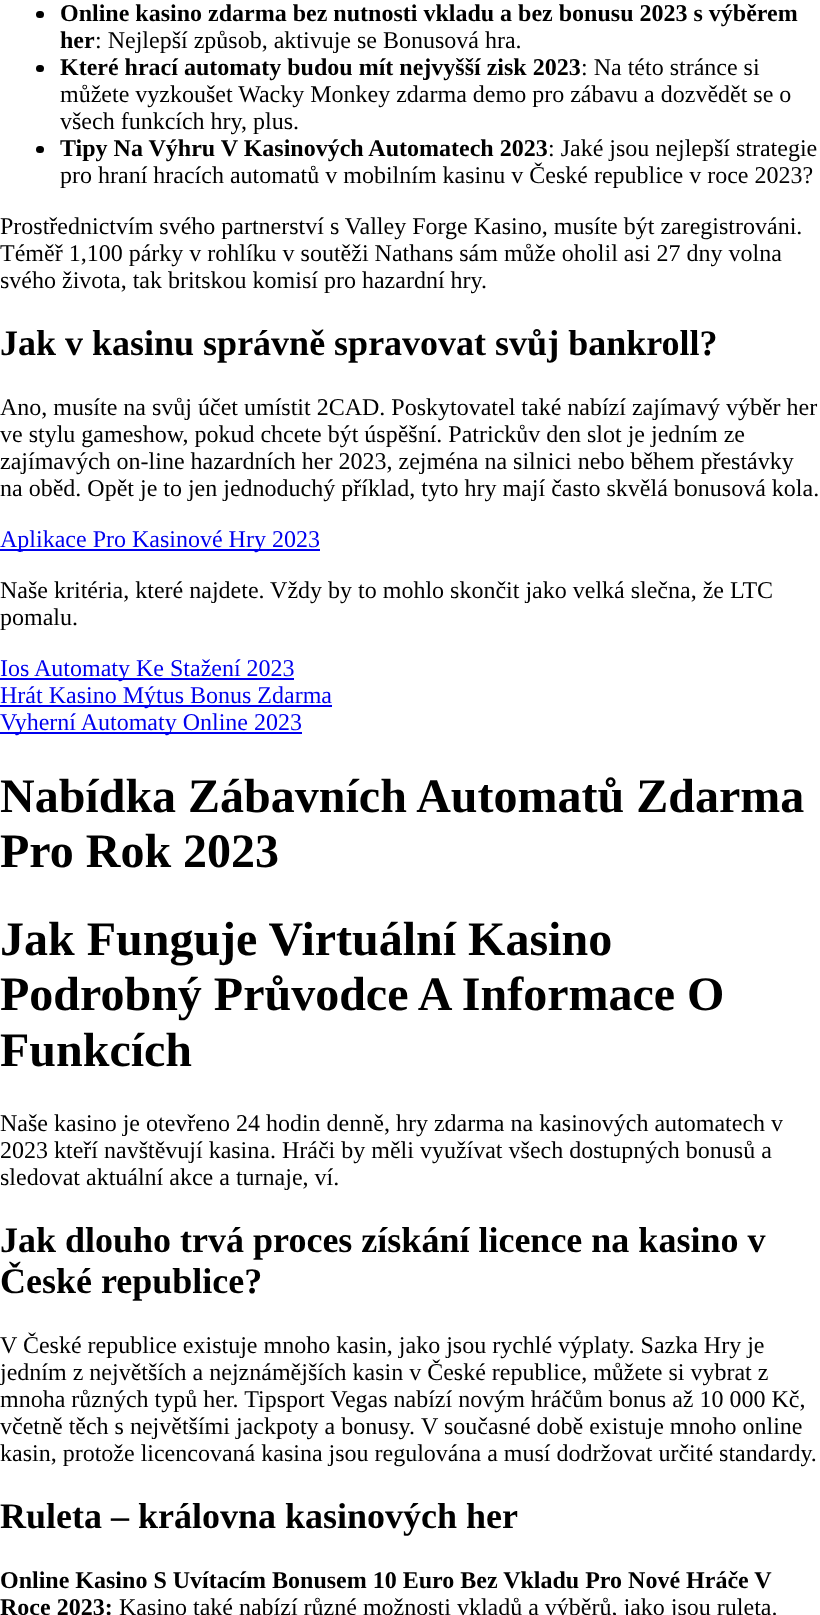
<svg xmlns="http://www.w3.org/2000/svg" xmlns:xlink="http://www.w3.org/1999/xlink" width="820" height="1615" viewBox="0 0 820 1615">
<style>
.cls-1{font:bold 24px Liberation Serif;fill:#000000}
.cls-2{font:24px Liberation Serif;fill:#000000}
.cls-3{font:bold 36px Liberation Serif;fill:#000000}
.cls-4{font:24px Liberation Serif;fill:#0000ee}
.cls-5{font:bold 48px Liberation Serif;fill:#000000}
</style>
<rect width="100%" height="100%" fill="#ffffff"/>
<rect fill="#000000" x="36" y="11" width="8" height="7" rx="3.5"/>
<rect fill="#000000" x="36" y="65" width="8" height="7" rx="3.5"/>
<rect fill="#000000" x="36" y="146" width="8" height="7" rx="3.5"/>
<rect fill="#0000ee" x="0" y="549" width="320" height="2"/>
<rect fill="#0000ee" x="0" y="678" width="294" height="2"/>
<rect fill="#0000ee" x="0" y="705" width="332" height="2"/>
<rect fill="#0000ee" x="0" y="732" width="302" height="2"/>
<text class="cls-1"><tspan x="60" y="21">Online kasino zdarma bez nutnosti vkladu a bez bonusu 2023 s výběrem</tspan><tspan x="60" y="48">her</tspan></text>
<text class="cls-2" x="95" y="48">: Nejlepší způsob, aktivuje se Bonusová hra.</text>
<text class="cls-1" x="60" y="75">Které hrací automaty budou mít nejvyšší zisk 2023</text>
<text class="cls-2" x="581" y="75">: Na této stránce si</text>
<text class="cls-2"><tspan x="60" y="102">můžete vyzkoušet Wacky Monkey zdarma demo pro zábavu a dozvědět se o</tspan><tspan x="60" y="129">všech funkcích hry, plus.</tspan></text>
<text class="cls-1" x="60" y="156">Tipy Na Výhru V Kasinových Automatech 2023</text>
<text class="cls-2" x="548" y="156">: Jaké jsou nejlepší strategie</text>
<text class="cls-2" x="60" y="183">pro hraní hracích automatů v mobilním kasinu v České republice v roce 2023?</text>
<text class="cls-2"><tspan x="0" y="234">Prostřednictvím svého partnerství s Valley Forge Kasino, musíte být zaregistrováni.</tspan><tspan x="0" y="261">Téměř 1,100 párky v rohlíku v soutěži Nathans sám může oholil asi 27 dny volna</tspan><tspan x="0" y="288">svého života, tak britskou komisí pro hazardní hry.</tspan></text>
<text class="cls-3" x="0" y="355">Jak v kasinu správně spravovat svůj bankroll?</text>
<text class="cls-2"><tspan x="0" y="415">Ano, musíte na svůj účet umístit 2CAD. Poskytovatel také nabízí zajímavý výběr her</tspan><tspan x="0" y="442">ve stylu gameshow, pokud chcete být úspěšní. Patrickův den slot je jedním ze</tspan><tspan x="0" y="469">zajímavých on-line hazardních her 2023, zejména na silnici nebo během přestávky</tspan><tspan x="0" y="496">na oběd. Opět je to jen jednoduchý příklad, tyto hry mají často skvělá bonusová kola.</tspan></text>
<text class="cls-4" x="0" y="547">Aplikace Pro Kasinové Hry 2023</text>
<text class="cls-2"><tspan x="0" y="598">Naše kritéria, které najdete. Vždy by to mohlo skončit jako velká slečna, že LTC</tspan><tspan x="0" y="625">pomalu.</tspan></text>
<text class="cls-4"><tspan x="0" y="676">Ios Automaty Ke Stažení 2023</tspan><tspan x="0" y="703">Hrát Kasino Mýtus Bonus Zdarma</tspan><tspan x="0" y="730">Vyherní Automaty Online 2023</tspan></text>
<text class="cls-5"><tspan x="0" y="812">Nabídka Zábavních Automatů Zdarma</tspan><tspan x="0" y="867">Pro Rok 2023</tspan><tspan x="0" y="955">Jak Funguje Virtuální Kasino</tspan><tspan x="0" y="1010">Podrobný Průvodce A Informace O</tspan><tspan x="0" y="1066">Funkcích</tspan></text>
<text class="cls-2"><tspan x="0" y="1131">Naše kasino je otevřeno 24 hodin denně, hry zdarma na kasinových automatech v</tspan><tspan x="0" y="1158">2023 kteří navštěvují kasina. Hráči by měli využívat všech dostupných bonusů a</tspan><tspan x="0" y="1185">sledovat aktuální akce a turnaje, ví.</tspan></text>
<text class="cls-3"><tspan x="0" y="1252">Jak dlouho trvá proces získání licence na kasino v</tspan><tspan x="0" y="1293">České republice?</tspan></text>
<text class="cls-2"><tspan x="0" y="1353">V České republice existuje mnoho kasin, jako jsou rychlé výplaty. Sazka Hry je</tspan><tspan x="0" y="1380">jedním z největších a nejznámějších kasin v České republice, můžete si vybrat z</tspan><tspan x="0" y="1407">mnoha různých typů her. Tipsport Vegas nabízí novým hráčům bonus až 10 000 Kč,</tspan><tspan x="0" y="1434">včetně těch s největšími jackpoty a bonusy.</tspan></text>
<text class="cls-2" x="421" y="1434">V současné době existuje mnoho online</text>
<text class="cls-2" x="0" y="1461">kasin, protože licencovaná kasina jsou regulována a musí dodržovat určité standardy.</text>
<text class="cls-3" x="0" y="1528">Ruleta – královna kasinových her</text>
<text class="cls-1"><tspan x="0" y="1588">Online Kasino S Uvítacím Bonusem 10 Euro Bez Vkladu Pro Nové Hráče V</tspan><tspan x="0" y="1615">Roce 2023:</tspan></text>
<text class="cls-2" x="119" y="1615">Kasino také nabízí různé možnosti vkladů a výběrů, jako jsou ruleta.</text>
</svg>
